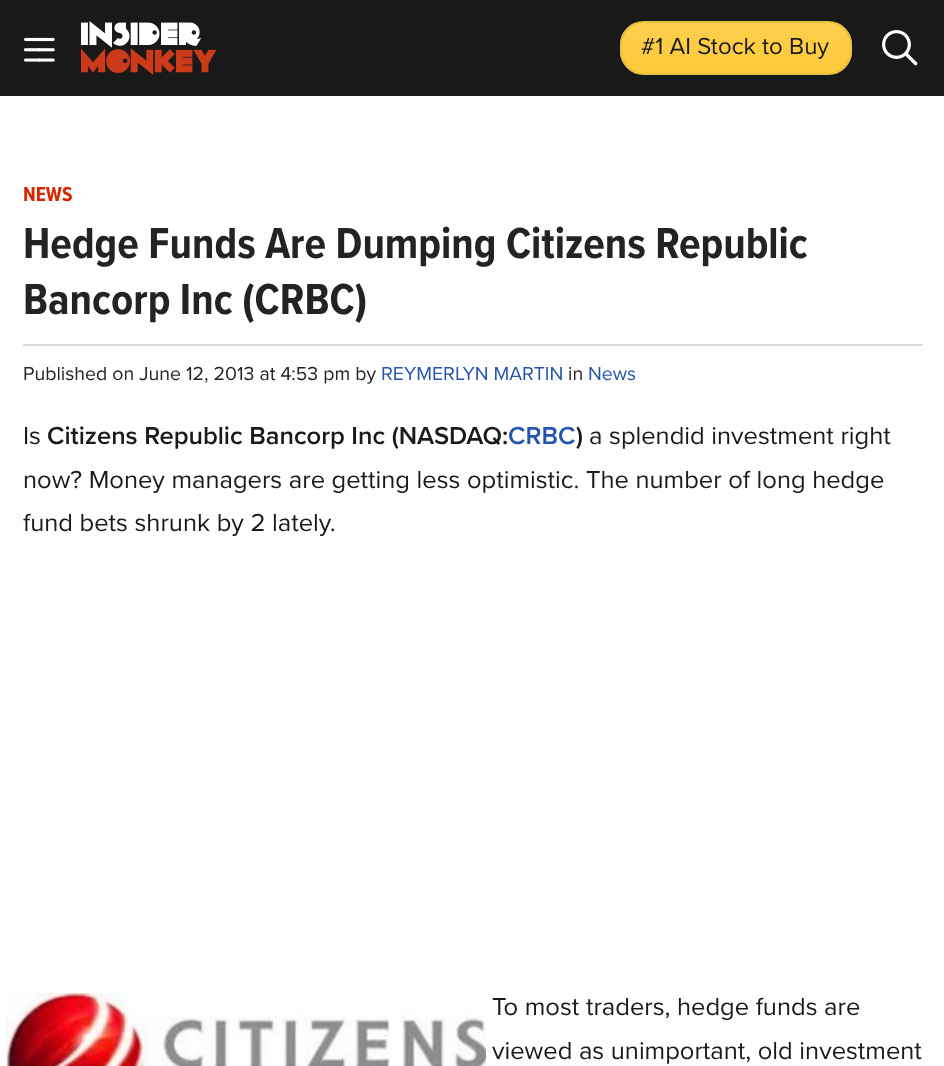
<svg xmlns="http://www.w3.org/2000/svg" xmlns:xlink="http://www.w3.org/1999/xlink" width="944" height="1066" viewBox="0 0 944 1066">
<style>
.cls-1{font:24px Proxima Nova;fill:#1a1a1a}
.cls-2{font:bold 21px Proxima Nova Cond;fill:#d82600}
.cls-3{font:bold 45px Proxima Nova Cond;fill:#232323}
.cls-4{font:19.5px Proxima Nova;fill:#232323}
.cls-5{font:19.5px Proxima Nova;fill:#2555ae}
.cls-6{font:25.5px Proxima Nova;fill:#1a1a1a}
.cls-7{font:600 25.5px Proxima Nova;fill:#1a1a1a}
.cls-8{font:600 25.5px Proxima Nova;fill:#2555ae}
</style>
<defs>
<clipPath id="clip1"><rect x="620" y="21" width="232" height="54" rx="24"/></clipPath>
<linearGradient id="g1" gradientUnits="userSpaceOnUse" x1="736" y1="22" x2="736" y2="74"><stop offset="0" stop-color="#fed04e"/><stop offset="1" stop-color="#fec93a"/></linearGradient>
</defs>
<rect width="100%" height="100%" fill="#ffffff"/>
<rect fill="#191919" x="0" y="0" width="944" height="96"/>
<image xlink:href="image0.png" x="23" y="37" width="32" height="25"/>
<image xlink:href="image1.png" x="81" y="21" width="135" height="54"/>
<g clip-path="url(#clip1)">
<rect fill="url(#g1)" x="620" y="23" width="232" height="51"/>
</g>
<rect fill="none" stroke="#e5c242" stroke-width="2" x="621" y="22" width="230" height="52" rx="23"/>
<image xlink:href="image2.png" x="882" y="30" width="36" height="36"/>
<rect fill="#dcdcdc" x="23" y="344" width="900" height="2"/>
<image xlink:href="image3.png" x="6" y="993" width="480" height="73"/>
<text class="cls-1" x="641" y="54">#1 AI Stock to Buy</text>
<text class="cls-2" x="23" y="201">NEWS</text>
<text class="cls-3"><tspan x="23" y="258">Hedge Funds Are Dumping Citizens Republic</tspan><tspan x="23" y="314">Bancorp Inc (CRBC)</tspan></text>
<text class="cls-4" x="23" y="380">Published on June 12, 2013 at 4:53 pm by</text>
<text class="cls-5" x="381" y="380">REYMERLYN MARTIN</text>
<text class="cls-4" x="568" y="380">in</text>
<text class="cls-5" x="588" y="380">News</text>
<text class="cls-6" x="23" y="444">Is</text>
<text class="cls-7" x="47" y="444">Citizens Republic Bancorp Inc (NASDAQ:</text>
<text class="cls-8" x="508" y="444">CRBC</text>
<text class="cls-7" x="576" y="444">)</text>
<text class="cls-6" x="589" y="444">a splendid investment right</text>
<text class="cls-6"><tspan x="23" y="488">now? Money managers are getting less optimistic. The number of long hedge</tspan><tspan x="23" y="531">fund bets shrunk by 2 lately.</tspan></text>
<text class="cls-6"><tspan x="492" y="1015">To most traders, hedge funds are</tspan><tspan x="492" y="1059">viewed as unimportant, old investment</tspan></text>
</svg>
